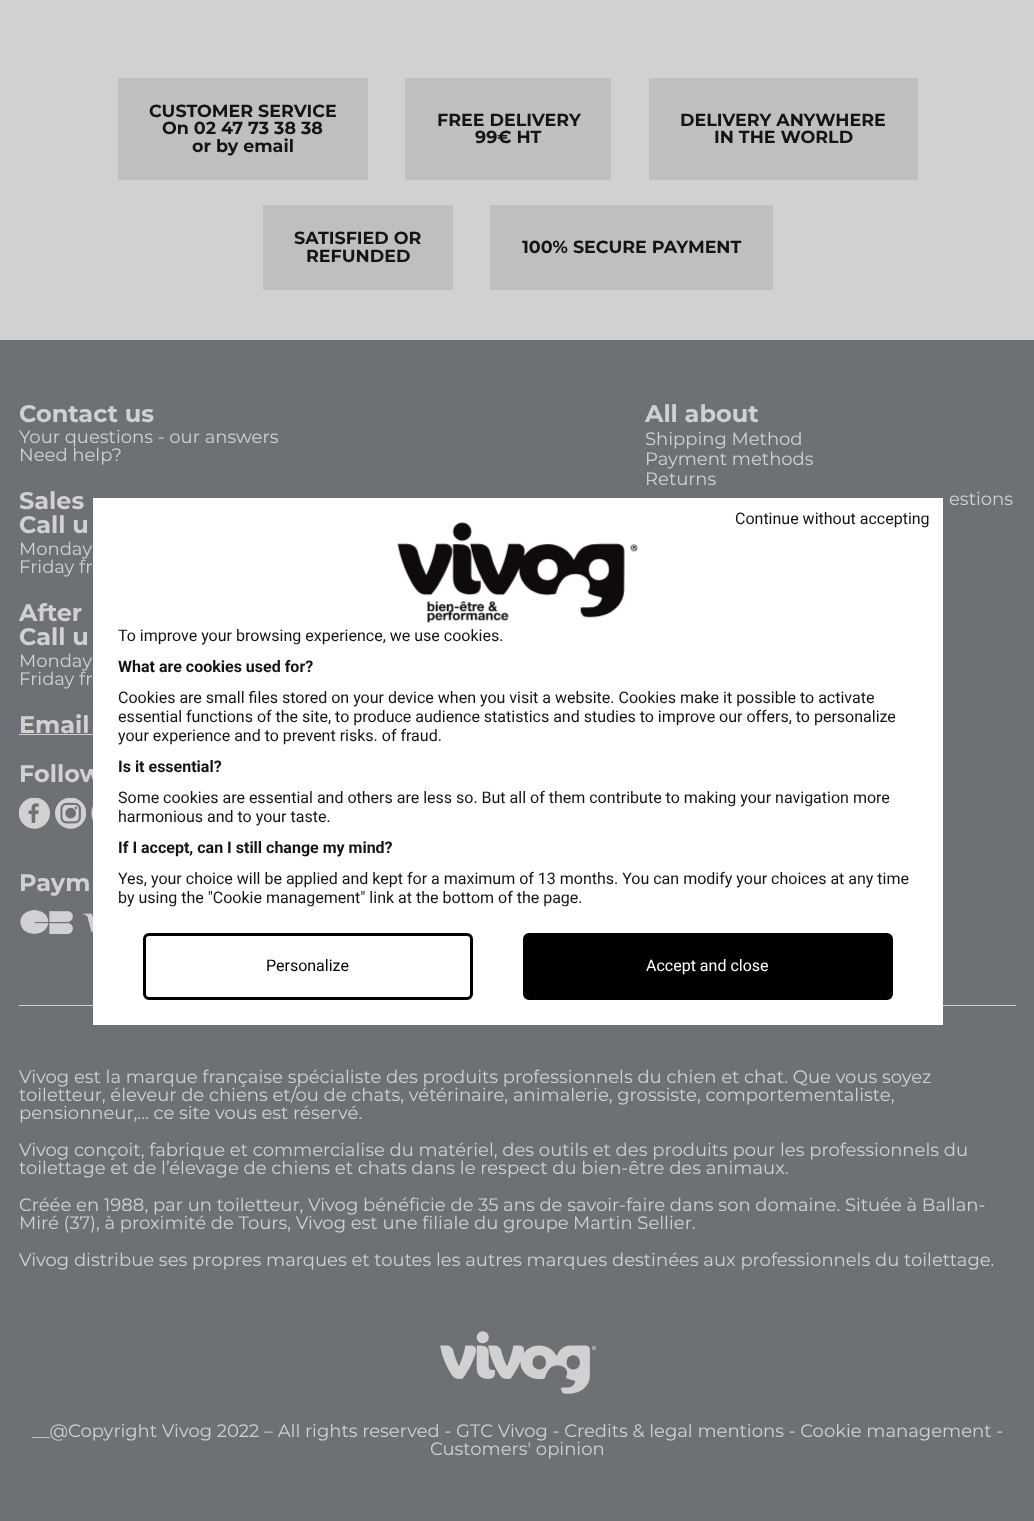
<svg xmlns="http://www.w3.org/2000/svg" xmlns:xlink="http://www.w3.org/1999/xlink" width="1034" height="1521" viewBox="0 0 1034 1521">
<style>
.cls-1{font:bold 17.5px Montserrat;fill:#171315}
.cls-2{font:bold 24px Montserrat;fill:#d1d1d1}
.cls-3{font:18px Montserrat;fill:#d1d1d1}
.cls-4{font:16px Roboto;fill:#171315}
.cls-5{font:bold 16px Roboto;fill:#171315}
.cls-6{font:16px Roboto;fill:#000000}
.cls-7{font:16px Roboto;fill:#ffffff}
</style>
<rect width="100%" height="100%" fill="#d1d1d1"/>
<rect fill="#bebfbf" x="118" y="78" width="250" height="102"/>
<rect fill="#bebfbf" x="405" y="78" width="206" height="102"/>
<rect fill="#bebfbf" x="649" y="78" width="269" height="102"/>
<rect fill="#bebfbf" x="263" y="205" width="190" height="85"/>
<rect fill="#bebfbf" x="490" y="205" width="283" height="85"/>
<rect fill="#6d7175" x="0" y="340" width="1034" height="1181"/>
<rect fill="#d1d1d1" x="19" y="1005" width="997" height="1"/>
<rect fill="#d1d1d1" x="19" y="734" width="74" height="1"/>
<image xlink:href="image0.png" x="19" y="798" width="31" height="31"/>
<image xlink:href="image1.png" x="55" y="798" width="31" height="31"/>
<image xlink:href="image2.png" x="91" y="806" width="2" height="14"/>
<image xlink:href="image3.png" x="20" y="910" width="73" height="24"/>
<image xlink:href="image4.png" x="440" y="1331" width="156" height="63"/>
<text class="cls-1" x="149" y="117">CUSTOMER SERVICE</text>
<text class="cls-1" x="162" y="134">On 02 47 73 38 38</text>
<text class="cls-1" x="192" y="152">or by email</text>
<text class="cls-1" x="437" y="126">FREE DELIVERY</text>
<text class="cls-1" x="475" y="143">99€ HT</text>
<text class="cls-1" x="680" y="126">DELIVERY ANYWHERE</text>
<text class="cls-1" x="714" y="143">IN THE WORLD</text>
<text class="cls-1" x="294" y="244">SATISFIED OR</text>
<text class="cls-1" x="306" y="262">REFUNDED</text>
<text class="cls-1" x="522" y="253">100% SECURE PAYMENT</text>
<text class="cls-2" x="19" y="422">Contact us</text>
<text class="cls-3"><tspan x="19" y="443">Your questions - our answers</tspan><tspan x="19" y="461">Need help?</tspan></text>
<text class="cls-2"><tspan x="19" y="509">Sales</tspan><tspan x="19" y="533">Call u</tspan></text>
<text class="cls-3"><tspan x="19" y="555">Monday</tspan><tspan x="19" y="573">Friday fr</tspan></text>
<text class="cls-2"><tspan x="19" y="621">After</tspan><tspan x="19" y="645">Call u</tspan></text>
<text class="cls-3"><tspan x="19" y="667">Monday</tspan><tspan x="19" y="685">Friday fr</tspan></text>
<text class="cls-2" x="19" y="733">Email</text>
<text class="cls-2" x="645" y="422">All about</text>
<text class="cls-3"><tspan x="645" y="445">Shipping Method</tspan><tspan x="645" y="465">Payment methods</tspan><tspan x="645" y="485">Returns</tspan></text>
<text class="cls-3" x="949" y="505">estions</text>
<text class="cls-2" x="19" y="782">Follow</text>
<text class="cls-2" x="19" y="891">Paym</text>
<text class="cls-3"><tspan x="19" y="1083">Vivog est la marque française spécialiste des produits professionnels du chien et chat. Que vous soyez</tspan><tspan x="19" y="1101">toiletteur, éleveur de chiens et/ou de chats, vétérinaire, animalerie, grossiste, comportementaliste,</tspan><tspan x="19" y="1119">pensionneur,... ce site vous est réservé.</tspan></text>
<text class="cls-3"><tspan x="19" y="1156">Vivog conçoit, fabrique et commercialise du matériel, des outils et des produits pour les professionnels du</tspan><tspan x="19" y="1174">toilettage et de l’élevage de chiens et chats dans le respect du bien-être des animaux.</tspan></text>
<text class="cls-3"><tspan x="19" y="1211">Créée en 1988, par un toiletteur, Vivog bénéficie de 35 ans de savoir-faire dans son domaine. Située à Ballan-</tspan><tspan x="19" y="1229">Miré (37), à proximité de Tours, Vivog est une filiale du groupe</tspan></text>
<text class="cls-3" x="573" y="1229">Martin Sellier.</text>
<text class="cls-3" x="19" y="1266">Vivog distribue ses propres marques et toutes les autres marques destinées aux professionnels du toilettage.</text>
<text class="cls-3" x="32" y="1437">__@Copyright Vivog 2022 – All rights reserved - GTC Vivog - Credits &amp; legal mentions - Cookie management -</text>
<text class="cls-3" x="430" y="1455">Customers' opinion</text>
<rect fill="#ffffff" x="93" y="498" width="850" height="527"/>
<text class="cls-4" x="735" y="524">Continue without accepting</text>
<image xlink:href="image5.png" x="397" y="522" width="241" height="101"/>
<text class="cls-4" x="118" y="641">To improve your browsing experience, we use cookies.</text>
<text class="cls-5" x="118" y="672">What are cookies used for?</text>
<text class="cls-4"><tspan x="118" y="703">Cookies are small files stored on your device when you visit a website. Cookies make it possible to activate</tspan><tspan x="118" y="722">essential functions of the site, to produce audience statistics and studies to improve our offers, to personalize</tspan><tspan x="118" y="741">your experience and to prevent risks. of fraud.</tspan></text>
<text class="cls-5" x="118" y="772">Is it essential?</text>
<text class="cls-4"><tspan x="118" y="803">Some cookies are essential and others are less so. But all of them contribute to making your navigation more</tspan><tspan x="118" y="822">harmonious and to your taste.</tspan></text>
<text class="cls-5" x="118" y="853">If I accept, can I still change my mind?</text>
<text class="cls-4"><tspan x="118" y="884">Yes, your choice will be applied and kept for a maximum of 13 months. You can modify your choices at any time</tspan><tspan x="118" y="903">by using the "Cookie management" link at the bottom of the page.</tspan></text>
<rect fill="none" stroke="#000000" stroke-width="3" x="144.5" y="934.5" width="327" height="64" rx="4.5"/>
<text class="cls-6" x="266" y="971">Personalize</text>
<rect fill="#000000" stroke="#000000" stroke-width="3" x="524.5" y="934.5" width="367" height="64" rx="4.5"/>
<text class="cls-7" x="646" y="971">Accept and close</text>
</svg>
